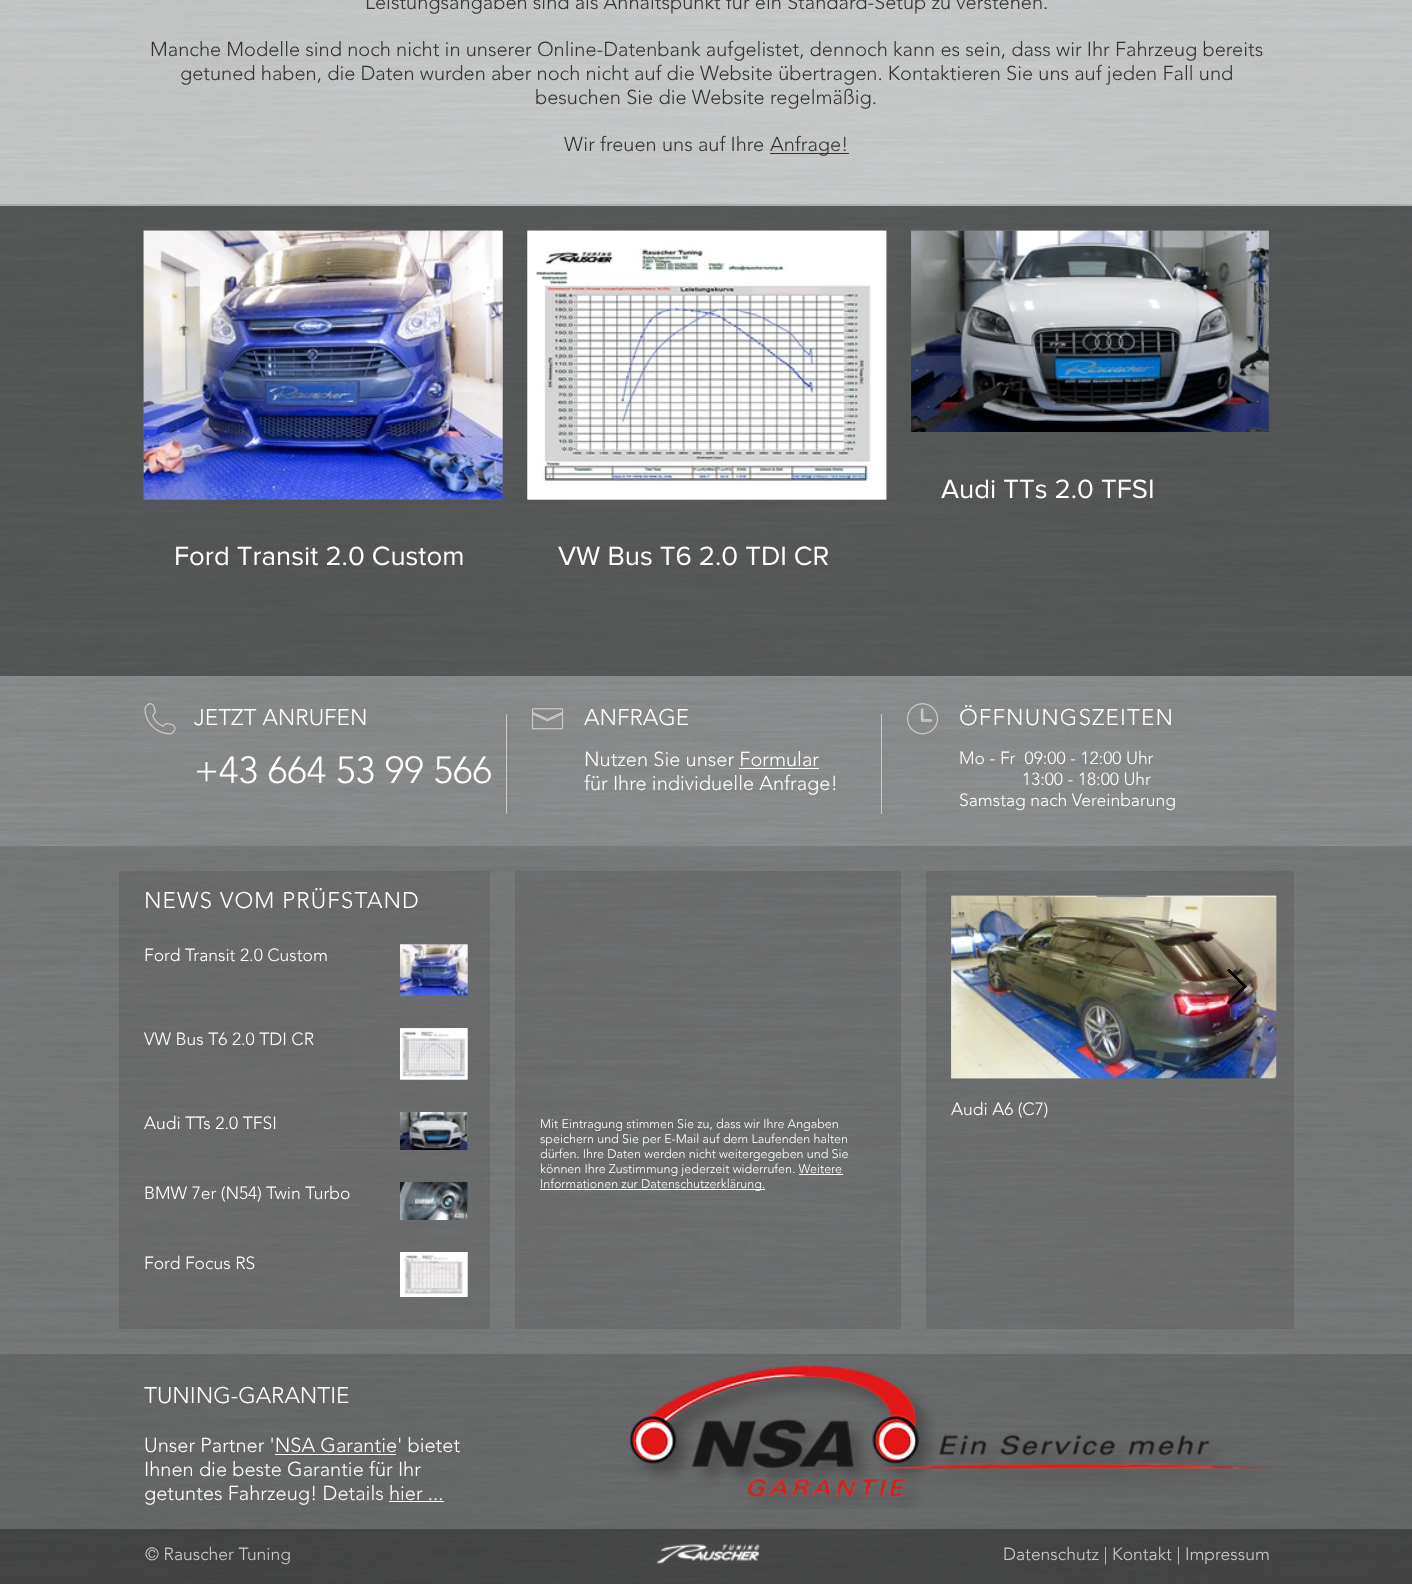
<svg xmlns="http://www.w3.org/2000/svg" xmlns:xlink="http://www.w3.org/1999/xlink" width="1412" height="1584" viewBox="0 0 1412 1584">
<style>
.cls-1{font:300 20px 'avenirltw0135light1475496';fill:#333333}
.cls-2{font:27.5px 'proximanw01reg';fill:#ffffff}
.cls-3{font:300 22.5px 'avenirltw0135light1475496';fill:#ffffff}
.cls-4{font:300 22.5px 'avenirltw0135light1475496';letter-spacing:1.1px;fill:#ffffff}
.cls-5{font:300 37.5px 'avenirltw0135light1475496';fill:#ffffff}
.cls-6{font:300 20px 'avenirltw0135light1475496';fill:#ffffff}
.cls-7{font:300 17.5px 'avenirltw0135light1475496';fill:#ffffff}
.cls-8{font:300 12.5px 'avenirltw0135light1475496';fill:#ffffff}
.cls-9{font:300 17.5px 'avenirltw0135light1475496';fill:#cccccc}
</style>
<rect width="100%" height="100%" fill="#999999"/>
<image xlink:href="image0.png" x="0" y="0" width="1412" height="1584"/>
<rect fill="#ffffff" fill-opacity="0.3" x="0" y="0" width="1412" height="204"/>
<rect fill="#333333" x="770" y="153" width="79" height="1"/>
<rect fill="#000000" fill-opacity="0.5" x="0" y="206" width="1412" height="470"/>
<image xlink:href="image1.png" x="911" y="230" width="358" height="202"/>
<image xlink:href="image2.png" x="911" y="230" width="358" height="202"/>
<image xlink:href="image3.png" x="143" y="230" width="360" height="270"/>
<image xlink:href="image4.png" x="143" y="230" width="360" height="270"/>
<image xlink:href="image5.png" x="527" y="230" width="360" height="270"/>
<image xlink:href="image6.png" x="527" y="230" width="360" height="270"/>
<rect fill="#000000" fill-opacity="0.2" x="0" y="676" width="1412" height="170"/>
<image xlink:href="image7.png" x="144" y="703" width="32" height="32"/>
<rect fill="#cccccc" x="506" y="714" width="1" height="100"/>
<image xlink:href="image8.png" x="531" y="708" width="33" height="22"/>
<rect fill="#cccccc" x="881" y="714" width="1" height="100"/>
<image xlink:href="image9.png" x="906" y="703" width="33" height="32"/>
<rect fill="#ffffff" x="739" y="768" width="80" height="1"/>
<rect fill="#000000" fill-opacity="0.3" x="0" y="846" width="1412" height="508"/>
<rect fill="#000000" fill-opacity="0.1" x="119" y="871" width="371" height="458"/>
<image xlink:href="image10.png" x="400" y="944" width="68" height="52"/>
<image xlink:href="image11.png" x="400" y="944" width="68" height="52"/>
<image xlink:href="image12.png" x="400" y="1028" width="68" height="52"/>
<image xlink:href="image13.png" x="400" y="1028" width="68" height="52"/>
<image xlink:href="image14.png" x="400" y="1112" width="67" height="38"/>
<image xlink:href="image15.png" x="467" y="1112" width="1" height="38"/>
<image xlink:href="image16.png" x="400" y="1182" width="67" height="38"/>
<image xlink:href="image17.png" x="467" y="1182" width="1" height="38"/>
<image xlink:href="image18.png" x="400" y="1252" width="67" height="45"/>
<image xlink:href="image19.png" x="467" y="1252" width="1" height="45"/>
<rect fill="#000000" fill-opacity="0.1" x="926" y="871" width="368" height="458"/>
<image xlink:href="image20.png" x="951" y="895" width="326" height="184"/>
<image xlink:href="image21.png" x="951" y="895" width="326" height="184"/>
<path fill="#000000" fill-opacity="0.9" stroke="#000000" stroke-opacity="0.9" d="M1227.5 970.5L1229 969L1246.5 986.5L1229 1004L1227.5 1002.5L1243.5 986.5Z"/>
<rect fill="#000000" fill-opacity="0.1" x="515" y="871" width="386" height="458"/>
<rect fill="#ffffff" x="799" y="1174" width="44" height="1"/>
<rect fill="#ffffff" x="540" y="1189" width="225" height="1"/>
<rect fill="#000000" fill-opacity="0.4" x="0" y="1354" width="1412" height="175"/>
<rect fill="#ffffff" x="275" y="1454" width="121" height="1"/>
<rect fill="#ffffff" x="389" y="1501" width="55" height="1"/>
<image xlink:href="image22.png" x="629" y="1365" width="644" height="144"/>
<rect fill="#000000" fill-opacity="0.6" x="0" y="1529" width="1412" height="55"/>
<image xlink:href="image23.png" x="656" y="1544" width="104" height="20"/>
<text class="cls-1" x="365" y="9">Leistungsangaben sind als Anhaltspunkt für ein Standard-Setup zu verstehen.</text>
<text class="cls-1" x="150" y="56">Manche Modelle sind noch nicht in unserer Online-Datenbank aufgelistet, dennoch kann es sein, dass wir Ihr Fahrzeug bereits</text>
<text class="cls-1" x="180" y="80">getuned haben, die Daten wurden aber noch nicht auf die Website übertragen. Kontaktieren Sie uns auf jeden Fall und</text>
<text class="cls-1" x="535" y="104">besuchen Sie die Website regelmäßig.</text>
<text class="cls-1" x="564" y="151">Wir freuen uns auf Ihre</text>
<text class="cls-1" x="770" y="151">Anfrage!</text>
<text class="cls-2" x="941" y="498">Audi TTs 2.0 TFSI</text>
<text class="cls-2" x="174" y="565">Ford Transit 2.0 Custom</text>
<text class="cls-2" x="558" y="565">VW Bus T6 2.0 TDI CR</text>
<text class="cls-3" x="194" y="725">JETZT ANRUFEN</text>
<text class="cls-3" x="584" y="725">ANFRAGE</text>
<text class="cls-4" x="959" y="725">ÖFFNUNGSZEITEN</text>
<text class="cls-5" x="194" y="783">+43 664 53 99 566</text>
<text class="cls-6"><tspan x="584" y="766">Nutzen Sie unser Formular</tspan><tspan x="584" y="790">für Ihre individuelle Anfrage!</tspan></text>
<text class="cls-7" xml:space="preserve" x="959" y="764">Mo - Fr  09:00 - 12:00 Uhr</text>
<text class="cls-7" x="1022" y="785">13:00 - 18:00 Uhr</text>
<text class="cls-7" x="959" y="806">Samstag nach Vereinbarung</text>
<text class="cls-4" x="144" y="908">NEWS VOM PRÜFSTAND</text>
<text class="cls-7" x="144" y="961">Ford Transit 2.0 Custom</text>
<text class="cls-7" x="144" y="1045">VW Bus T6 2.0 TDI CR</text>
<text class="cls-7" x="144" y="1129">Audi TTs 2.0 TFSI</text>
<text class="cls-7" x="144" y="1199">BMW 7er (N54) Twin Turbo</text>
<text class="cls-7" x="144" y="1269">Ford Focus RS</text>
<text class="cls-7" x="951" y="1115">Audi A6 (C7)</text>
<text class="cls-8"><tspan x="540" y="1128">Mit Eintragung stimmen Sie zu, dass wir Ihre Angaben</tspan><tspan x="540" y="1143">speichern und Sie per E-Mail auf dem Laufenden halten</tspan><tspan x="540" y="1158">dürfen. Ihre Daten werden nicht weitergegeben und Sie</tspan><tspan x="540" y="1173">können Ihre Zustimmung jederzeit widerrufen. Weitere</tspan><tspan x="540" y="1188">Informationen zur Datenschutzerklärung.</tspan></text>
<text class="cls-3" x="144" y="1403">TUNING-GARANTIE</text>
<text class="cls-6"><tspan x="144" y="1452">Unser Partner 'NSA Garantie' bietet</tspan><tspan x="144" y="1476">Ihnen die beste Garantie für Ihr</tspan><tspan x="144" y="1500">getuntes Fahrzeug! Details hier ...</tspan></text>
<text class="cls-9" x="145" y="1560">© Rauscher Tuning</text>
<text class="cls-9" x="1003" y="1560">Datenschutz | Kontakt | Impressum</text>
</svg>
